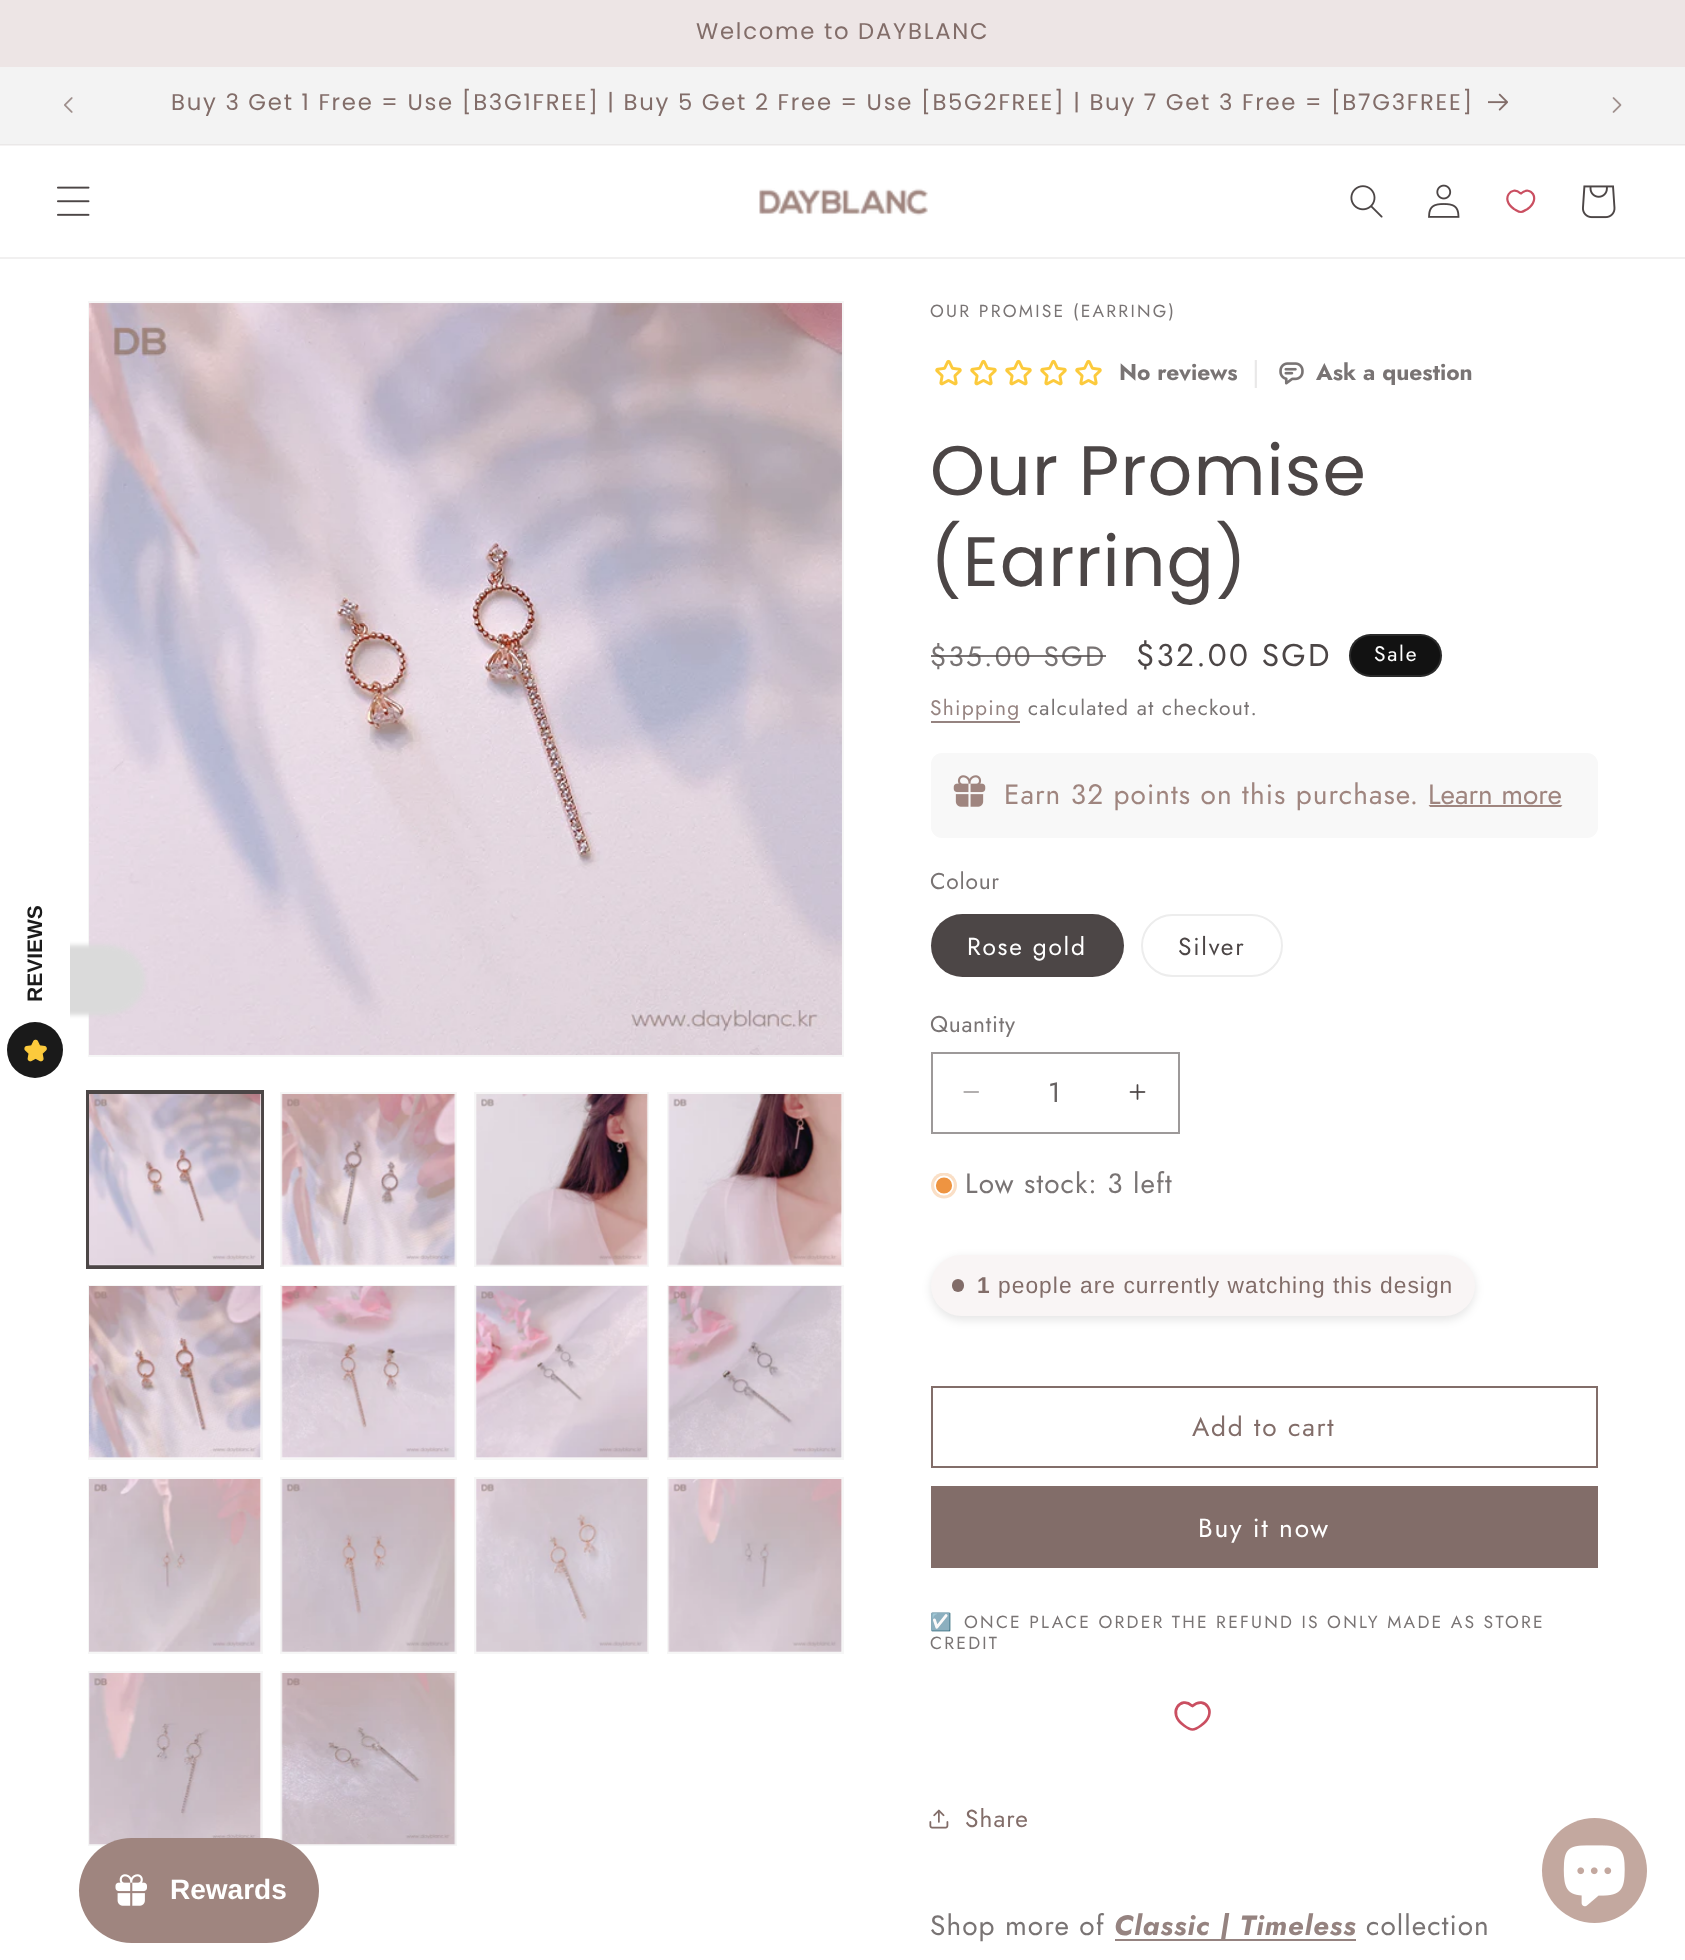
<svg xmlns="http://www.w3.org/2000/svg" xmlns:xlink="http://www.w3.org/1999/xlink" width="1685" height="1960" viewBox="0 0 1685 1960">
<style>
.cls-1{font:22.75px Poppins;letter-spacing:1.75px;fill:#826d69}
.cls-2{font:bold 21px Liberation Sans;fill:#1a1a1a}
.cls-3{font:bold 28px Liberation Sans;fill:#ffffff}
.cls-4{font:17.5px Jost;letter-spacing:2.25px;fill:#797474}
.cls-5{font:bold 22.75px Jost;fill:#797474}
.cls-6{font:28px Jost;letter-spacing:1.05px;fill:#e9e8e8}
.cls-7{font:70px Poppins;letter-spacing:1.05px;fill:#4c4646}
.cls-8{font:28px Jost;letter-spacing:2.25px;fill:#797474}
.cls-9{font:31.5px Jost;letter-spacing:2.25px;fill:#4c4646}
.cls-10{font:21px Jost;letter-spacing:1.75px;fill:#ffffff}
.cls-11{font:21px Jost;letter-spacing:1.25px;fill:#958380}
.cls-12{font:21px Jost;letter-spacing:1.25px;fill:#797474}
.cls-13{font:28px Jost;letter-spacing:1.05px;fill:#9f857f}
.cls-14{font:28px Jost;fill:#9f857f}
.cls-15{font:22.75px Jost;letter-spacing:0.75px;fill:#797474}
.cls-16{font:24.5px Jost;letter-spacing:1.75px;fill:#ffffff}
.cls-17{font:24.5px Jost;letter-spacing:1.75px;fill:#4c4646}
.cls-18{font:28px Jost;fill:#676262}
.cls-19{font:28px Jost;letter-spacing:1.05px;fill:#797474}
.cls-20{font:bold 22.75px Liberation Sans;letter-spacing:1.05px;fill:#826d69}
.cls-21{font:22.75px Liberation Sans;letter-spacing:1.05px;fill:#826d69}
.cls-22{font:26.25px Jost;letter-spacing:1.75px;fill:#826d69}
.cls-23{font:26.25px Jost;letter-spacing:1.75px;fill:#ffffff}
.cls-24{font:17.5px Noto Color Emoji;letter-spacing:2.25px;fill:#797474}
.cls-25{font:24.5px Jost;letter-spacing:1.05px;fill:#826d69}
.cls-26{font:italic bold 28px Jost;letter-spacing:1.05px;fill:#958380}
</style>
<defs>
<clipPath id="clip1"><rect x="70" y="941" width="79" height="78"/></clipPath>
<clipPath id="clip2"><rect x="1428" y="781" width="135" height="28" rx="7"/></clipPath>
<clipPath id="clip3"><rect x="931" y="1173" width="26" height="26"/></clipPath>
</defs>
<rect width="100%" height="100%" fill="#ffffff"/>
<rect fill="#f5f3f3" x="0" y="145" width="1685" height="1"/>
<rect fill="#ede5e5" x="0" y="0" width="1685" height="67"/>
<rect fill="#f3f3f3" x="0" y="67" width="1685" height="77"/>
<rect fill="#eae8e8" x="0" y="144" width="1685" height="1"/>
<image xlink:href="image0.png" x="64" y="97" width="9" height="16"/>
<image xlink:href="image1.png" x="1488" y="93" width="20" height="18"/>
<image xlink:href="image2.png" x="1612" y="97" width="10" height="16"/>
<rect fill="#f1f0f0" x="0" y="257" width="1685" height="2"/>
<image xlink:href="image3.png" x="57" y="186" width="33" height="30"/>
<image xlink:href="image4.png" x="759" y="188" width="169" height="28"/>
<image xlink:href="image5.png" x="1350" y="185" width="33" height="33"/>
<image xlink:href="image6.png" x="1428" y="184" width="32" height="34"/>
<path fill="none" stroke="#ca4f61" stroke-width="2.2" d="M1520 193L1521 193.5C1530.5 184.5 1541.5 199 1527.5 209C1525.5 210 1523 212 1521 212C1518.5 212 1516 210 1514 209C1499.5 199 1512 185 1520 193Z"/>
<image xlink:href="image7.png" x="1582" y="185" width="34" height="34"/>
<rect fill="none" stroke="#f6f6f6" stroke-width="2" x="89" y="302" width="754" height="754"/>
<image xlink:href="image10.png" x="89" y="303" width="753" height="752"/>
<g clip-path="url(#clip1)">
<rect fill="#dadada" filter="blur(2px)" x="-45" y="945" width="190" height="70" rx="39"/>
</g>
<circle fill="#1a1a1a" cx="35" cy="1050" r="28"/>
<image xlink:href="image8.png" x="24" y="1039" width="23" height="23"/>
<rect fill="none" stroke="#f6f6f6" stroke-width="2" x="89" y="1672" width="173" height="173"/>
<image xlink:href="image23.png" x="89" y="1673" width="173" height="172"/>
<rect fill="none" stroke="#f6f6f6" stroke-width="2" x="281" y="1672" width="175" height="173"/>
<image xlink:href="image24.png" x="281" y="1673" width="175" height="172"/>
<rect fill="#9f857f" x="79" y="1838" width="240" height="105" rx="52.5"/>
<image xlink:href="image9.png" x="115" y="1874" width="32" height="32"/>
<rect fill="none" stroke="#4c4646" stroke-width="2" x="87" y="1091" width="176" height="177"/>
<rect fill="none" stroke="#4c4646" stroke-width="2" x="89" y="1093" width="173" height="173"/>
<image xlink:href="image11.png" x="89" y="1094" width="173" height="172"/>
<rect fill="none" stroke="#f6f6f6" stroke-width="2" x="281" y="1093" width="175" height="173"/>
<image xlink:href="image12.png" x="281" y="1094" width="175" height="172"/>
<rect fill="none" stroke="#f6f6f6" stroke-width="2" x="475" y="1093" width="173" height="173"/>
<image xlink:href="image13.png" x="476" y="1094" width="172" height="172"/>
<rect fill="none" stroke="#f6f6f6" stroke-width="2" x="668" y="1093" width="175" height="173"/>
<image xlink:href="image14.png" x="668" y="1094" width="174" height="172"/>
<rect fill="none" stroke="#f6f6f6" stroke-width="2" x="89" y="1286" width="173" height="173"/>
<image xlink:href="image15.png" x="89" y="1286" width="173" height="172"/>
<rect fill="none" stroke="#f6f6f6" stroke-width="2" x="281" y="1286" width="175" height="173"/>
<image xlink:href="image16.png" x="281" y="1286" width="175" height="172"/>
<rect fill="none" stroke="#f6f6f6" stroke-width="2" x="475" y="1286" width="173" height="173"/>
<image xlink:href="image17.png" x="475" y="1286" width="173" height="172"/>
<rect fill="none" stroke="#f6f6f6" stroke-width="2" x="668" y="1286" width="175" height="173"/>
<image xlink:href="image18.png" x="668" y="1286" width="174" height="172"/>
<rect fill="none" stroke="#f6f6f6" stroke-width="2" x="89" y="1478" width="173" height="175"/>
<image xlink:href="image19.png" x="89" y="1479" width="173" height="173"/>
<rect fill="none" stroke="#f6f6f6" stroke-width="2" x="281" y="1478" width="175" height="175"/>
<image xlink:href="image20.png" x="281" y="1479" width="175" height="173"/>
<rect fill="none" stroke="#f6f6f6" stroke-width="2" x="475" y="1478" width="173" height="175"/>
<image xlink:href="image21.png" x="476" y="1479" width="172" height="173"/>
<rect fill="none" stroke="#f6f6f6" stroke-width="2" x="668" y="1478" width="175" height="175"/>
<image xlink:href="image22.png" x="668" y="1479" width="174" height="173"/>
<image xlink:href="image25.png" x="935" y="359" width="27" height="27"/>
<image xlink:href="image25.png" x="970" y="359" width="27" height="27"/>
<image xlink:href="image25.png" x="1005" y="359" width="27" height="27"/>
<image xlink:href="image25.png" x="1040" y="359" width="27" height="27"/>
<image xlink:href="image25.png" x="1075" y="359" width="27" height="27"/>
<image xlink:href="image26.png" x="1279" y="362" width="25" height="23"/>
<rect fill="#121212" x="1349" y="634" width="93" height="43" rx="21.5"/>
<rect fill="none" stroke="#ffffff" stroke-opacity="0.1" stroke-width="2" x="1350" y="635" width="91" height="41" rx="20.5"/>
<rect fill="#958380" x="931" y="721" width="89" height="2"/>
<rect fill="#f8f8f8" x="931" y="753" width="667" height="85" rx="11"/>
<image xlink:href="image27.png" x="953" y="775" width="33" height="32"/>
<g clip-path="url(#clip2)">
<rect fill="#9f857f" x="1428" y="805" width="135" height="2"/>
</g>
<rect fill="#4c4646" x="931" y="914" width="193" height="63" rx="31.5"/>
<rect fill="none" stroke="#4c4646" stroke-opacity="0.1" stroke-width="2" x="932" y="915" width="191" height="61" rx="30.5"/>
<rect fill="none" stroke="#ededed" stroke-width="2" x="1142" y="915" width="140" height="61" rx="30.5"/>
<image xlink:href="image28.png" x="963" y="1091" width="16" height="2"/>
<image xlink:href="image29.png" x="1129" y="1084" width="17" height="16"/>
<rect fill="none" stroke="#9d9999" stroke-width="2" x="932" y="1053" width="247" height="80"/>
<g clip-path="url(#clip3)">
<circle fill="#fadfc6" cx="944" cy="1185.5" r="13"/>
</g>
<circle fill="#ee9441" stroke="#ffffff" stroke-width="1.8" cx="944" cy="1185.5" r="9"/>
<rect fill="#000000" fill-opacity="0.1" filter="blur(5px)" x="931" y="1258" width="544" height="62" rx="31"/>
<rect fill="#f9f5f5" x="931" y="1255" width="544" height="61" rx="30.5"/>
<rect fill="#826d69" x="952" y="1279" width="12" height="13" rx="6"/>
<rect fill="none" stroke="#826d69" stroke-width="2" x="932" y="1387" width="665" height="80"/>
<rect fill="#826d69" x="931" y="1486" width="667" height="82"/>
<path fill="none" stroke="#ca4f61" stroke-width="2.7" d="M1191.5 1705.5L1192.5 1706C1204.5 1695 1219 1713 1201 1725.5C1199 1727 1195 1729.5 1192.5 1729.5C1190 1729.5 1186 1727 1184 1725.5C1166 1713 1181.5 1695.5 1191.5 1705.5Z"/>
<image xlink:href="image30.png" x="929" y="1809" width="20" height="20"/>
<rect fill="#958380" x="1115" y="1939" width="241" height="2"/>
<circle fill="#c3a89f" cx="1594.5" cy="1870.5" r="52.5"/>
<image xlink:href="image31.png" x="1563" y="1845" width="62" height="62"/>
<text class="cls-1" x="696" y="39">Welcome to DAYBLANC</text>
<text class="cls-1" x="171" y="110">Buy 3 Get 1 Free = Use [B3G1FREE] | Buy 5 Get 2 Free = Use [B5G2FREE] | Buy 7 Get 3 Free = [B7G3FREE]</text>
<text class="cls-2" x="42" y="1002" transform="rotate(-90 42 1002)">REVIEWS</text>
<text class="cls-3" x="170" y="1899">Rewards</text>
<text class="cls-4" x="930" y="317">OUR PROMISE (EARRING)</text>
<text class="cls-5" x="1119" y="380">No reviews</text>
<text class="cls-6" x="1252" y="382">|</text>
<text class="cls-5" x="1316" y="380">Ask a question</text>
<text class="cls-7"><tspan x="930" y="495">Our Promise</tspan><tspan x="930" y="586">(Earring)</tspan></text>
<text class="cls-8" x="930" y="666">$35.00 SGD</text>
<rect fill="#4c4646" fill-opacity="0.75" x="931" y="655" width="175" height="2"/>
<text class="cls-9" x="1136" y="666">$32.00 SGD</text>
<text class="cls-10" x="1374" y="661">Sale</text>
<text class="cls-11" x="930" y="715">Shipping</text>
<text class="cls-12" x="1028" y="715">calculated at checkout.</text>
<text class="cls-13" x="1004" y="804">Earn 32 points on this purchase.</text>
<text class="cls-14" x="1428" y="804">Learn more</text>
<text class="cls-15" x="930" y="889">Colour</text>
<text class="cls-16" x="967" y="955">Rose gold</text>
<text class="cls-17" x="1178" y="955">Silver</text>
<text class="cls-15" x="930" y="1032">Quantity</text>
<text class="cls-18" x="1048" y="1102">1</text>
<text class="cls-19" x="965" y="1193">Low stock: 3 left</text>
<text class="cls-20" x="977" y="1293">1</text>
<text class="cls-21" x="998" y="1293">people are currently watching this design</text>
<text class="cls-22" x="1192" y="1436">Add to cart</text>
<text class="cls-23" x="1198" y="1537">Buy it now</text>
<text class="cls-24" x="930" y="1628">☑️</text>
<text class="cls-4" x="964" y="1628" word-spacing="-0.25">ONCE PLACE ORDER THE REFUND IS ONLY MADE AS STORE</text>
<text class="cls-4" x="930" y="1649">CREDIT</text>
<text class="cls-25" x="965" y="1827">Share</text>
<text class="cls-19" x="930" y="1935">Shop more of</text>
<text class="cls-26" x="1114" y="1935">Classic | Timeless</text>
<text class="cls-19" x="1366" y="1935">collection</text>
</svg>
